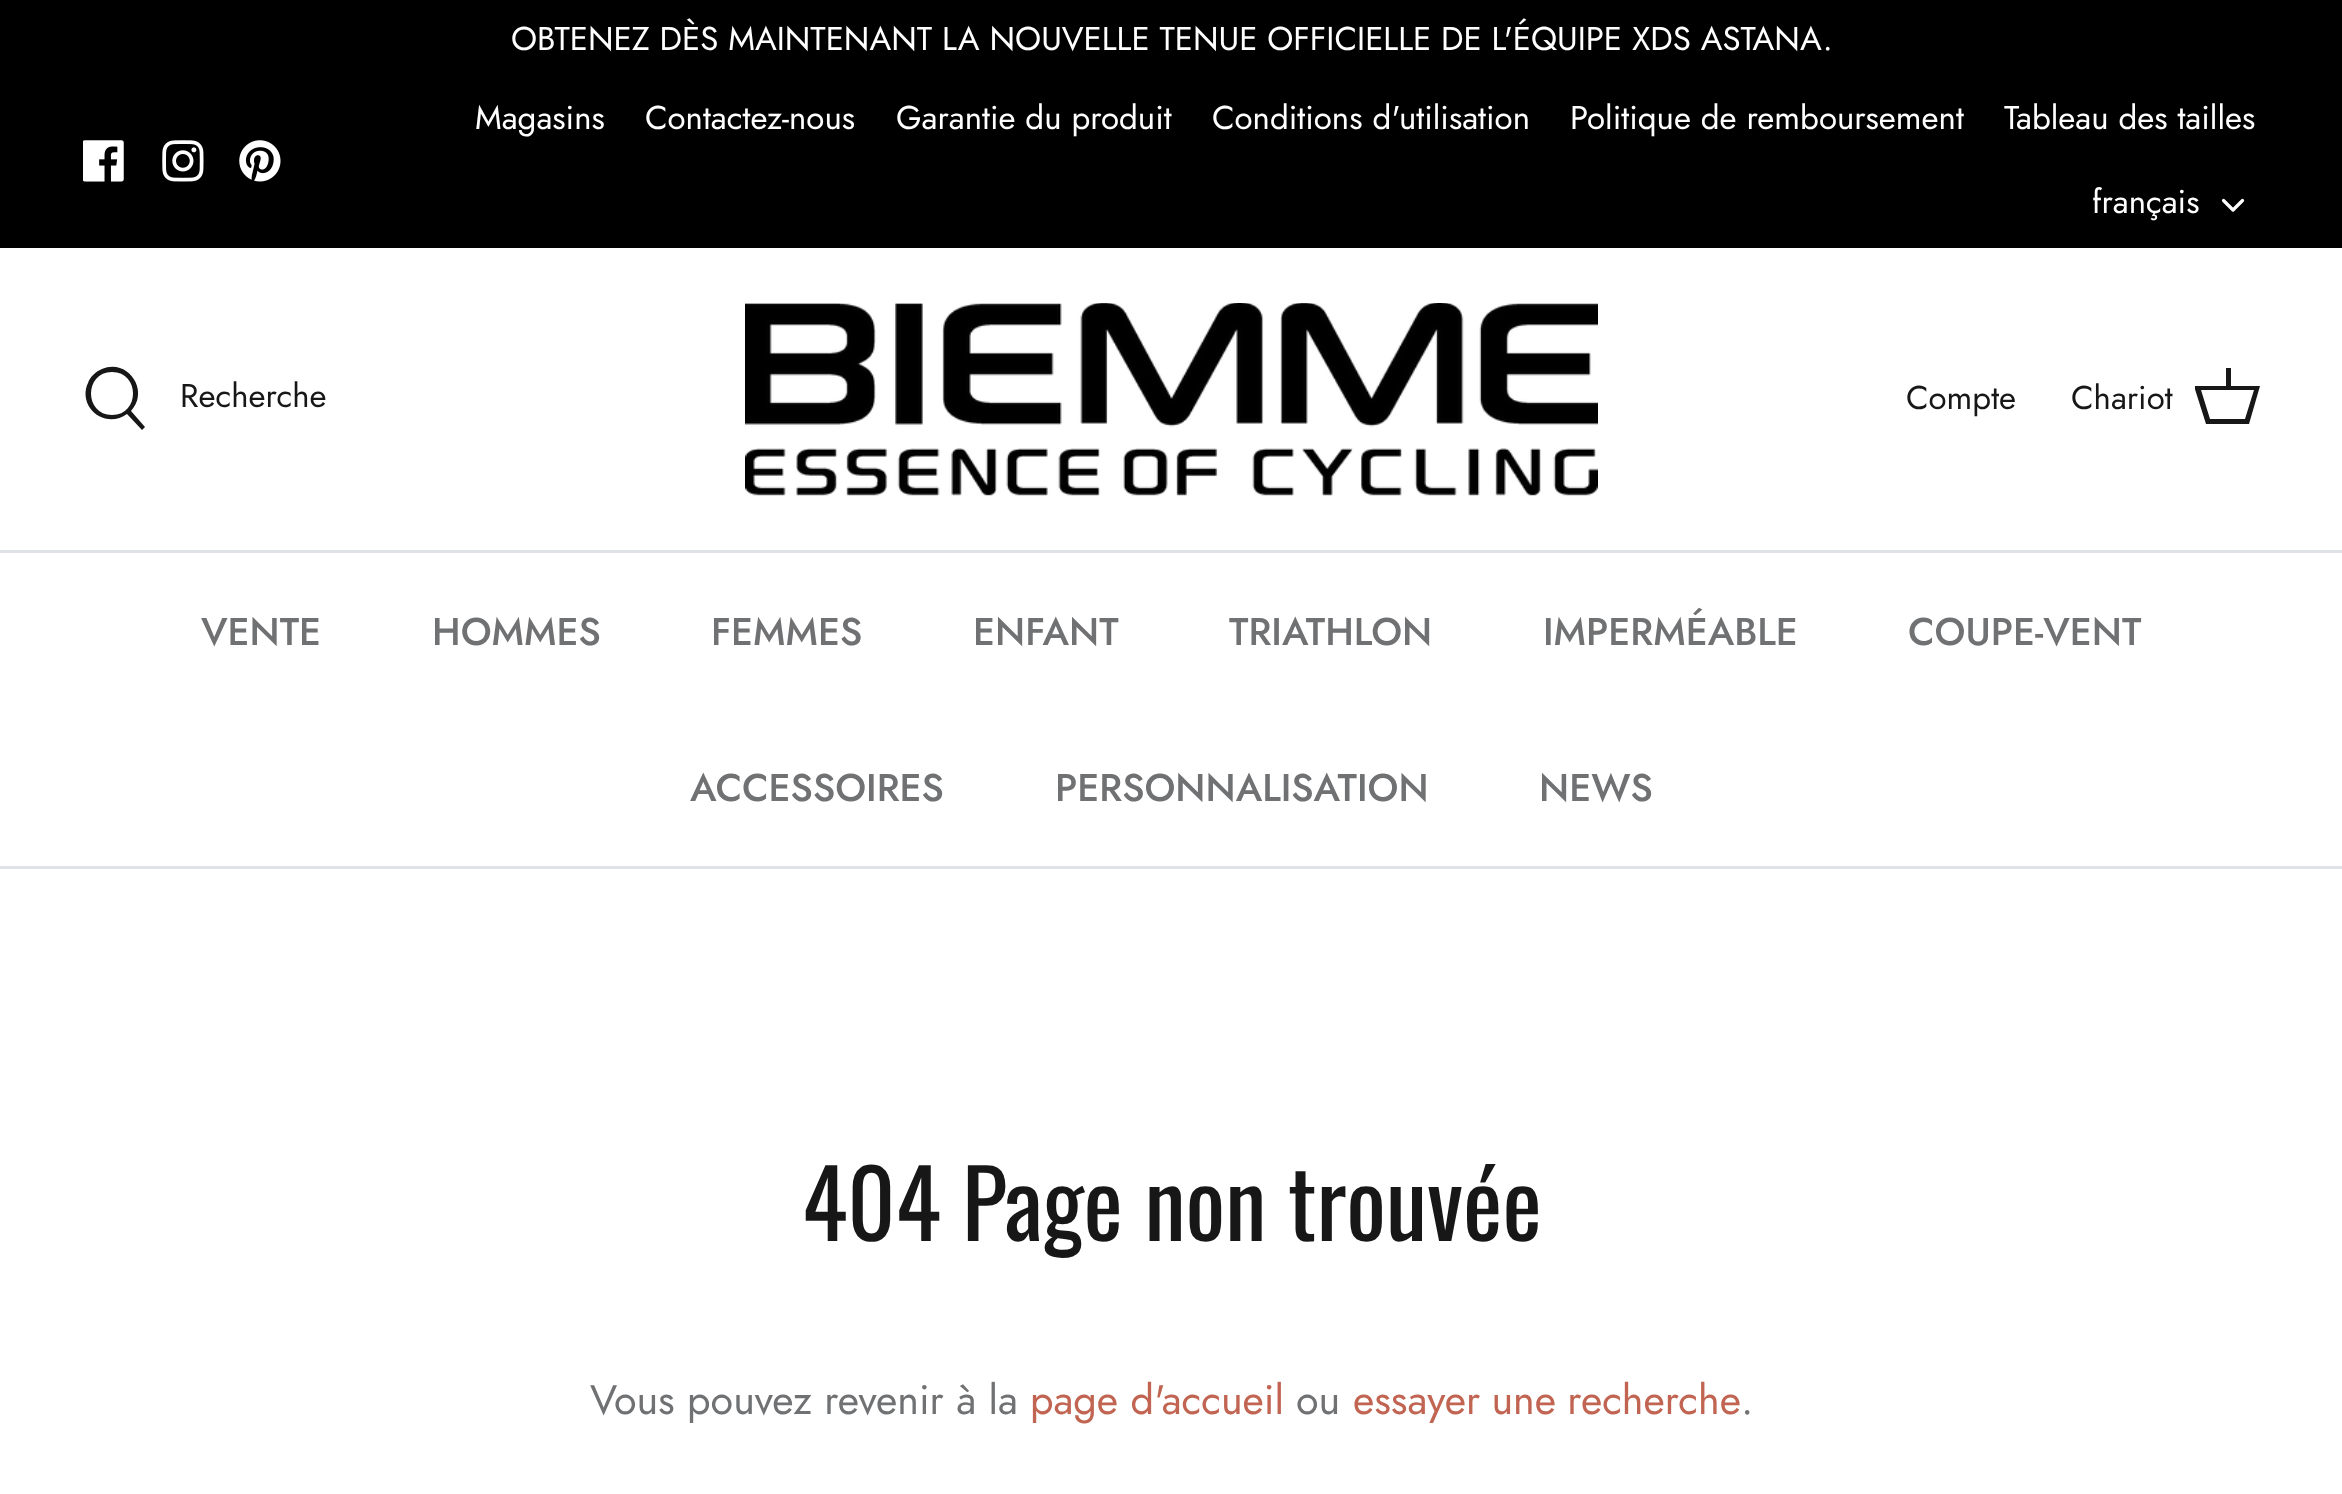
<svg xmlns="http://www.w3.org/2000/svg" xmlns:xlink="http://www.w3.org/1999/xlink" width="2342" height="1494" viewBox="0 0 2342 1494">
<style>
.cls-1{font:33px Jost;fill:#ffffff}
.cls-2{font:33px Jost;fill:#171717}
.cls-3{font:500 38.5px Jost;fill:#707173}
.cls-4{font:93.5px Oswald;fill:#171717}
.cls-5{font:41.25px Jost;fill:#707173}
.cls-6{font:41.25px Jost;fill:#c16452}
</style>
<defs>
<clipPath id="clip1"><rect x="2195" y="363" width="66" height="66"/></clipPath>
</defs>
<rect width="100%" height="100%" fill="#ffffff"/>
<rect fill="#000000" x="0" y="0" width="2342" height="248"/>
<image xlink:href="image0.png" x="83" y="140" width="41" height="42"/>
<image xlink:href="image1.png" x="162" y="140" width="42" height="42"/>
<image xlink:href="image2.png" x="239" y="140" width="42" height="42"/>
<path fill="none" stroke="#ffffff" stroke-width="3.2" stroke-linecap="round" stroke-linejoin="round" d="M2223.5 200.5L2233 210L2242.5 200.5"/>
<rect fill="#dfe3e8" x="0" y="550" width="2342" height="3"/>
<path fill="#171717" d="M131 411L145 427L142 430L127 414C115 423 98 420 90 408C85 401 84 391 88 383C90 377 95 372 102 369C128 358 150 391 131 411ZM112 415C140 415 140 372 112 372C84 372 84 415 112 415Z"/>
<image xlink:href="image3.png" x="745" y="303" width="853" height="193"/>
<g clip-path="url(#clip1)">
<path fill="#171717" d="M2226 386V368H2231V386H2260L2249 424H2206L2194 386ZM2201 390L2210 419H2245L2254 390Z"/>
</g>
<rect fill="#dfe3e8" x="0" y="866" width="2342" height="3"/>
<text class="cls-1" x="511" y="50">OBTENEZ DÈS MAINTENANT LA NOUVELLE TENUE OFFICIELLE DE L'ÉQUIPE XDS ASTANA.</text>
<text class="cls-1" x="475" y="129">Magasins</text>
<text class="cls-1" x="645" y="129">Contactez-nous</text>
<text class="cls-1" x="896" y="129">Garantie du produit</text>
<text class="cls-1" x="1212" y="129">Conditions d'utilisation</text>
<text class="cls-1" x="1570" y="129">Politique de remboursement</text>
<text class="cls-1" x="2004" y="129">Tableau des tailles</text>
<text class="cls-1" x="2092" y="213">français</text>
<text class="cls-2" x="180" y="407">Recherche</text>
<text class="cls-2" x="1906" y="409">Compte</text>
<text class="cls-2" x="2071" y="409">Chariot</text>
<text class="cls-3" x="201" y="645">VENTE</text>
<text class="cls-3" x="432" y="645">HOMMES</text>
<text class="cls-3" x="711" y="645">FEMMES</text>
<text class="cls-3" x="973" y="645">ENFANT</text>
<text class="cls-3" x="1229" y="645">TRIATHLON</text>
<text class="cls-3" x="1543" y="645">IMPERMÉABLE</text>
<text class="cls-3" x="1908" y="645">COUPE-VENT</text>
<text class="cls-3" x="690" y="801">ACCESSOIRES</text>
<text class="cls-3" x="1055" y="801">PERSONNALISATION</text>
<text class="cls-3" x="1539" y="801">NEWS</text>
<text class="cls-4" x="802" y="1241">404 Page non trouvée</text>
<text class="cls-5" x="590" y="1414">Vous pouvez revenir à la</text>
<text class="cls-6" x="1030" y="1414">page d'accueil</text>
<text class="cls-5" x="1296" y="1414">ou</text>
<text class="cls-6" x="1353" y="1414" word-spacing="-1">essayer une recherche</text>
<text class="cls-5" x="1741" y="1414">.</text>
</svg>
